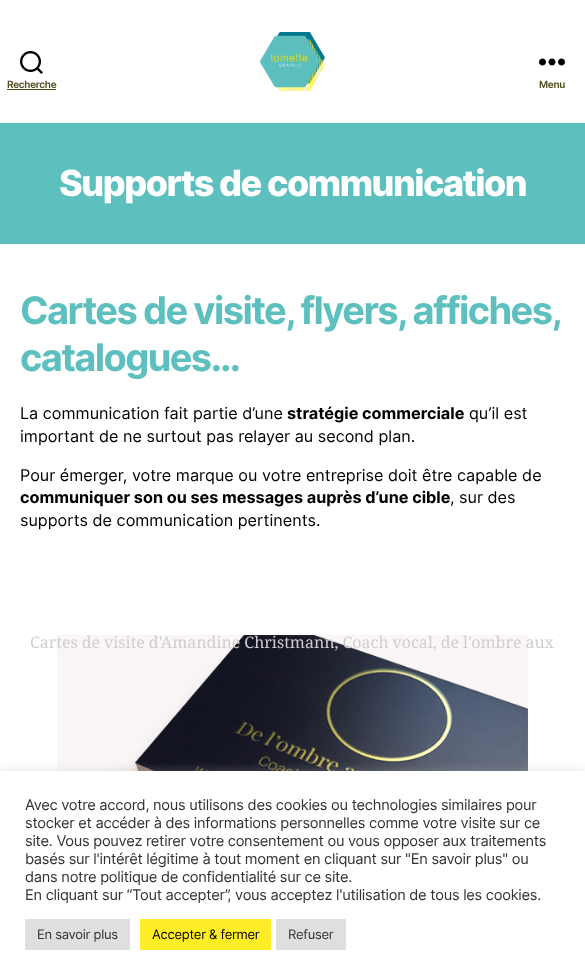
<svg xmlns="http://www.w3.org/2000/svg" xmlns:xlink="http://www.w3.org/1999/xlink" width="585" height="980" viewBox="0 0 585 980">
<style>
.cls-1{font:600 10px Inter;letter-spacing:-0.27px;fill:#504b1a}
.cls-2{font:800 36px Inter;letter-spacing:-1.5px;fill:#ffffff}
.cls-3{font:bold 38px Inter;letter-spacing:-1.6px;fill:#5ebfbf}
.cls-4{font:16.2px Inter;fill:#000000}
.cls-5{font:bold 16.2px Inter;fill:#000000}
.cls-6{font:16px Noto Serif;fill:#d0cdcf}
.cls-7{font:14.65px Inter;letter-spacing:-0.27px;fill:#333333}
.cls-8{font:13px Inter;letter-spacing:-0.27px;fill:#333333}
.cls-9{font:13px Inter;letter-spacing:-0.27px;fill:#000000}
</style>
<rect width="100%" height="100%" fill="#ffffff"/>
<image xlink:href="image0.png" x="20" y="51" width="23" height="23"/>
<rect fill="#504b1a" x="7" y="89" width="49" height="1"/>
<image xlink:href="image1.png" x="260" y="32" width="65" height="59"/>
<image xlink:href="image2.png" x="539" y="58" width="26" height="8"/>
<rect fill="#5ebfbf" x="0" y="123" width="585" height="121"/>
<image xlink:href="image3.png" x="57" y="635" width="471" height="136"/>
<rect fill="#acabab" fill-opacity="0.3" filter="blur(5px)" x="0" y="770" width="585" height="209"/>
<rect fill="#ffffff" x="0" y="771" width="585" height="209"/>
<rect fill="#dedfe0" x="25" y="919" width="105" height="31"/>
<rect fill="#ffed27" x="140" y="919" width="131" height="31"/>
<rect fill="#dedfe0" x="276" y="919" width="70" height="31"/>
<text class="cls-1" x="7" y="88">Recherche</text>
<text class="cls-1" x="539" y="88">Menu</text>
<text class="cls-2" x="59" y="196">Supports de communication</text>
<text class="cls-3"><tspan x="20" y="324" word-spacing="-0.5">Cartes de visite, flyers, affiches,</tspan><tspan x="20" y="371">catalogues…</tspan></text>
<text class="cls-4" x="20" y="419">La communication fait partie d’une</text>
<text class="cls-5" x="287" y="419">stratégie commerciale</text>
<text class="cls-4" x="469" y="419">qu’il est</text>
<text class="cls-4" x="20" y="442">important de ne surtout pas relayer au second plan.</text>
<text class="cls-4" x="20" y="481">Pour émerger, votre marque ou votre entreprise doit être capable de</text>
<text class="cls-5" x="20" y="503">communiquer son ou ses messages auprès d’une cible</text>
<text class="cls-4" x="450" y="503">, sur des</text>
<text class="cls-4" x="20" y="526">supports de communication pertinents.</text>
<text class="cls-6" x="30" y="648" word-spacing="-0.25">Cartes de visite d'Amandine Christmann, Coach vocal, de l'ombre aux</text>
<text class="cls-7"><tspan x="25" y="810">Avec votre accord, nous utilisons des cookies ou technologies similaires pour</tspan><tspan x="25" y="828">stocker et accéder à des informations personnelles comme votre visite sur ce</tspan><tspan x="25" y="846">site. Vous pouvez retirer votre consentement ou vous opposer aux traitements</tspan><tspan x="25" y="864">basés sur l'intérêt légitime à tout moment en cliquant sur "En savoir plus" ou</tspan><tspan x="25" y="882">dans notre politique de confidentialité sur ce site.</tspan><tspan x="25" y="900">En cliquant sur “Tout accepter”, vous acceptez l'utilisation de tous les cookies.</tspan></text>
<text class="cls-8" x="37" y="939">En savoir plus</text>
<text class="cls-9" x="152" y="939">Accepter &amp; fermer</text>
<text class="cls-8" x="288" y="939">Refuser</text>
</svg>
